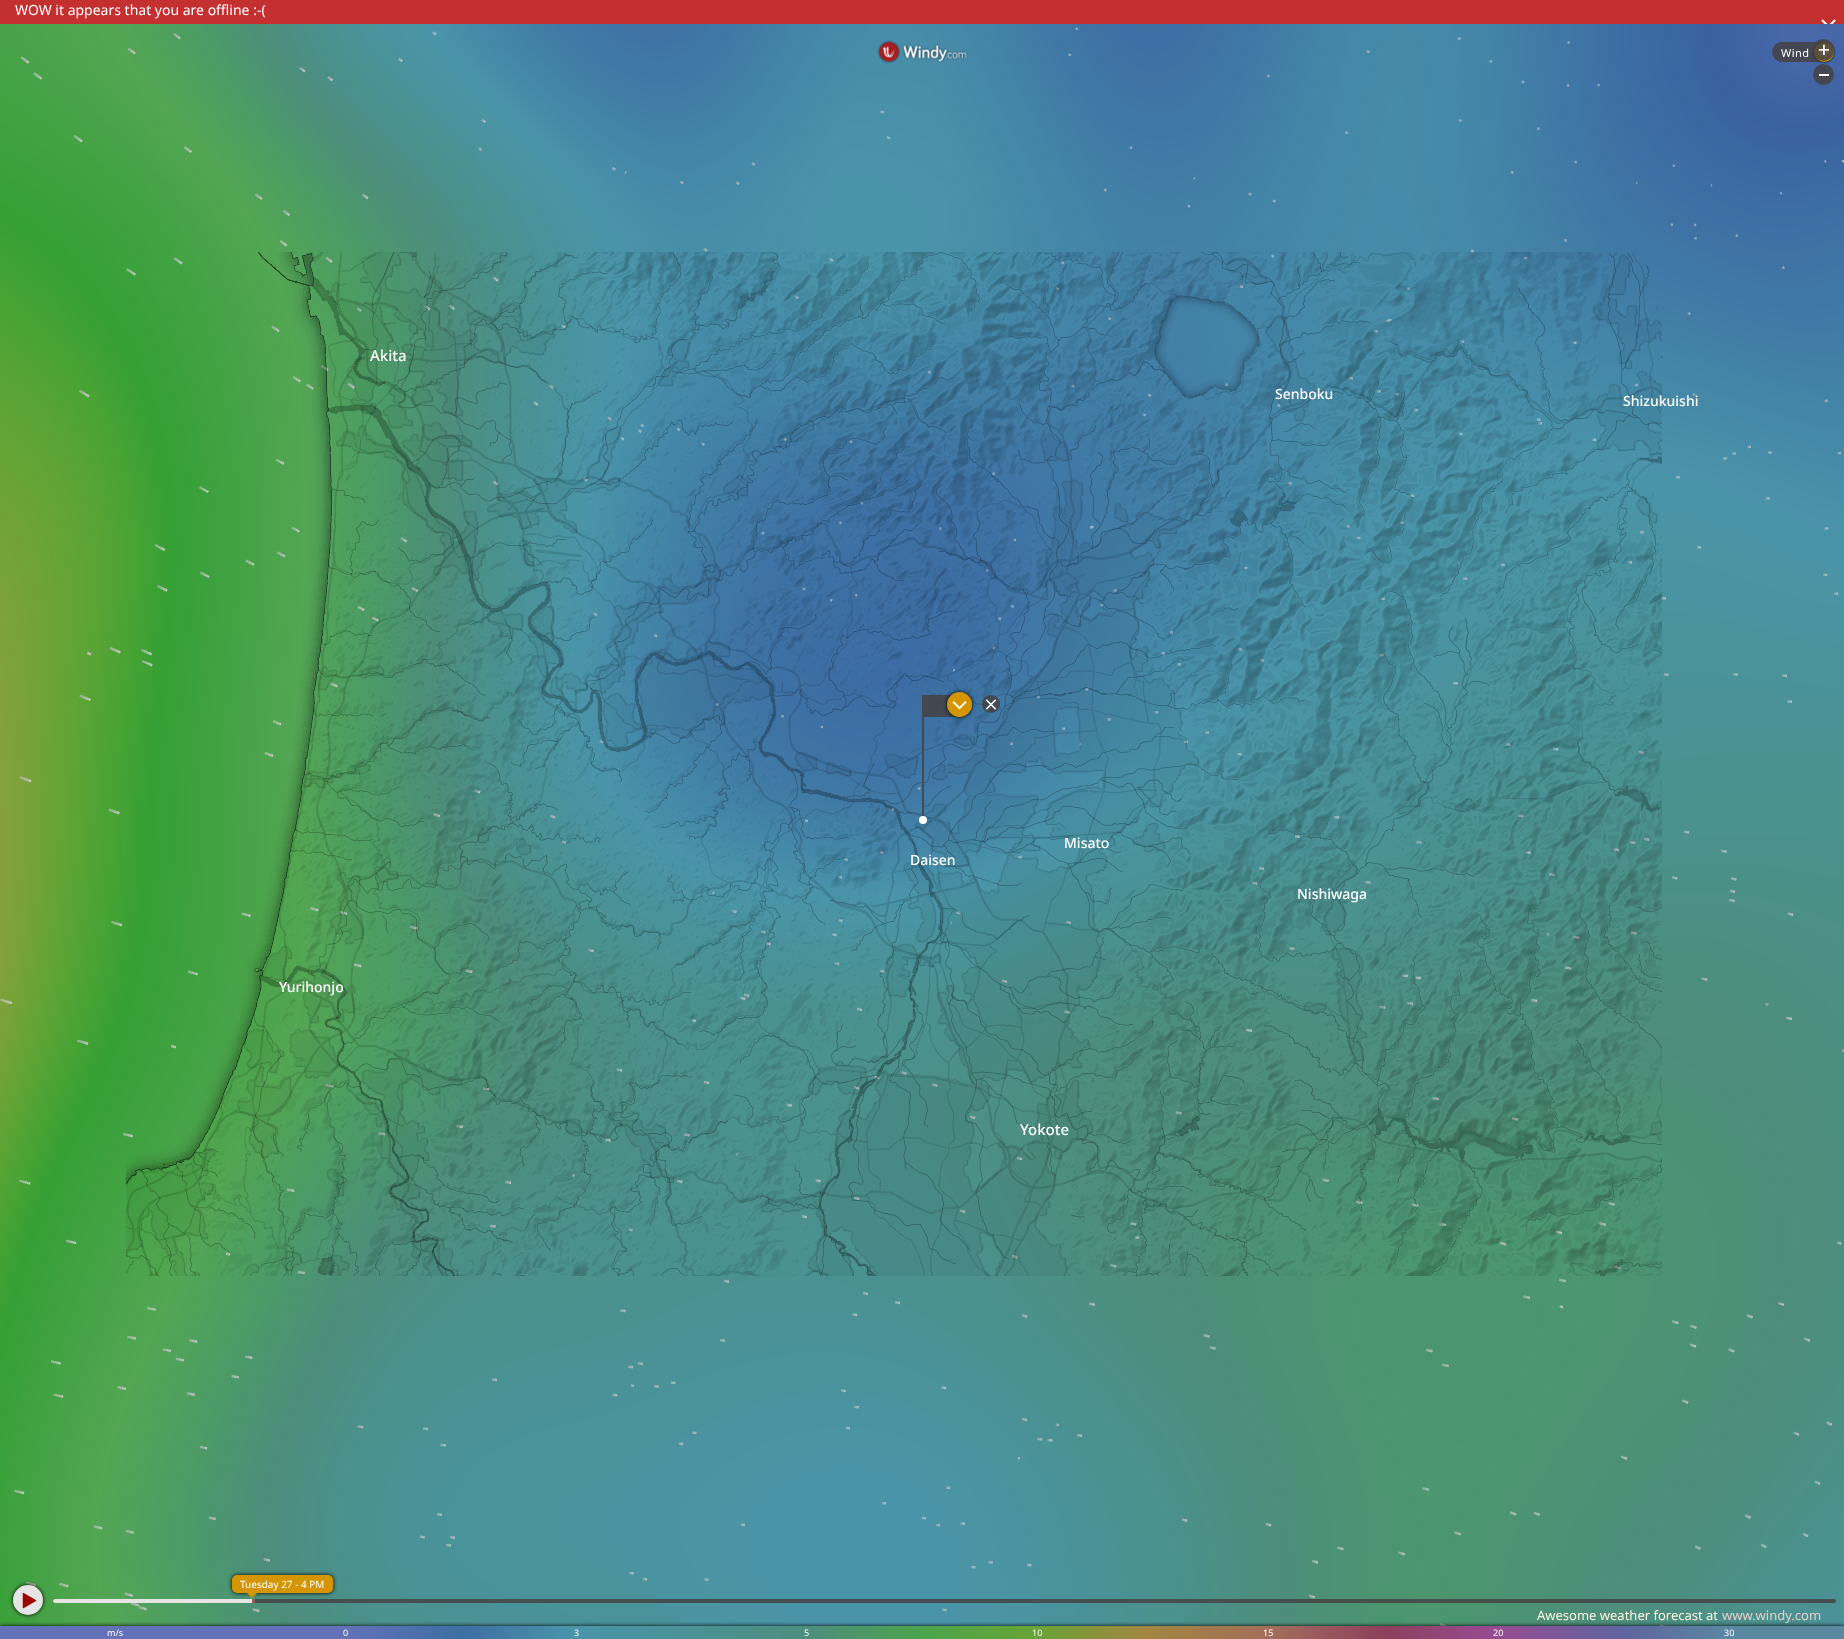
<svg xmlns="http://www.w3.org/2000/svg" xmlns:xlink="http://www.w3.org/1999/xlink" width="1844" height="1639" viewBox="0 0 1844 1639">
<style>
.cls-1{font:14px Noto Sans;fill:#ffffff}
.cls-2{font:11px Noto Sans;letter-spacing:0.5px;fill:#ffffff}
.cls-3{font:500 15px Noto Sans;fill:#ffffff}
.cls-4{font:500 14px Noto Sans;fill:#ffffff}
.cls-5{font:10px Noto Sans;fill:#ffffff}
.cls-6{font:13px Noto Sans;fill:#fff3e1}
.cls-7{font:13px Noto Sans;fill:#e6cece}
.cls-8{font:9px Noto Sans;fill:#ffffff}
</style>
<defs>
<linearGradient id="g1" gradientUnits="userSpaceOnUse" x1="0" y1="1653" x2="1844" y2="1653"><stop offset="0" stop-color="#6271b8"/><stop offset="0.19" stop-color="#6271b8"/><stop offset="0.25" stop-color="#3d6ea3"/><stop offset="0.31" stop-color="#4a94aa"/><stop offset="0.38" stop-color="#4a9294"/><stop offset="0.44" stop-color="#4d8e7c"/><stop offset="0.5" stop-color="#4ca44c"/><stop offset="0.56" stop-color="#67a436"/><stop offset="0.62" stop-color="#a28740"/><stop offset="0.69" stop-color="#a26d5c"/><stop offset="0.75" stop-color="#8d3f5c"/><stop offset="0.81" stop-color="#974b91"/><stop offset="0.88" stop-color="#5f64a0"/><stop offset="0.94" stop-color="#5b88a1"/><stop offset="1" stop-color="#5b88a1"/></linearGradient>
</defs>
<rect width="100%" height="100%" fill="#ffffff"/>
<rect fill="#c42f2f" x="0" y="0" width="1844" height="24"/>
<image xlink:href="image0.png" x="1821" y="19" width="15" height="5"/>
<image xlink:href="image8.png" x="638" y="24" width="256" height="228"/>
<image xlink:href="image9.png" x="894" y="24" width="256" height="228"/>
<image xlink:href="image5.png" x="0" y="24" width="126" height="228"/>
<image xlink:href="image6.png" x="126" y="24" width="256" height="228"/>
<image xlink:href="image7.png" x="382" y="24" width="256" height="228"/>
<image xlink:href="image10.png" x="1150" y="24" width="256" height="228"/>
<image xlink:href="image11.png" x="1406" y="24" width="256" height="228"/>
<image xlink:href="image12.png" x="1662" y="24" width="182" height="228"/>
<image xlink:href="image13.png" x="0" y="252" width="126" height="256"/>
<image xlink:href="image14.png" x="126" y="252" width="256" height="256"/>
<image xlink:href="image15.png" x="382" y="252" width="256" height="256"/>
<image xlink:href="image16.png" x="638" y="252" width="256" height="256"/>
<image xlink:href="image17.png" x="894" y="252" width="256" height="256"/>
<image xlink:href="image18.png" x="1150" y="252" width="256" height="256"/>
<image xlink:href="image19.png" x="1406" y="252" width="256" height="256"/>
<image xlink:href="image20.png" x="1662" y="252" width="182" height="256"/>
<image xlink:href="image21.png" x="0" y="508" width="126" height="256"/>
<image xlink:href="image22.png" x="126" y="508" width="256" height="256"/>
<image xlink:href="image23.png" x="382" y="508" width="256" height="256"/>
<image xlink:href="image24.png" x="638" y="508" width="256" height="256"/>
<image xlink:href="image25.png" x="894" y="508" width="256" height="256"/>
<image xlink:href="image26.png" x="1150" y="508" width="256" height="256"/>
<image xlink:href="image27.png" x="1406" y="508" width="256" height="256"/>
<image xlink:href="image28.png" x="1662" y="508" width="182" height="256"/>
<image xlink:href="image29.png" x="0" y="764" width="126" height="256"/>
<image xlink:href="image30.png" x="126" y="764" width="256" height="256"/>
<image xlink:href="image31.png" x="382" y="764" width="256" height="256"/>
<image xlink:href="image32.png" x="638" y="764" width="256" height="256"/>
<image xlink:href="image33.png" x="894" y="764" width="256" height="256"/>
<image xlink:href="image34.png" x="1150" y="764" width="256" height="256"/>
<image xlink:href="image35.png" x="1406" y="764" width="256" height="256"/>
<image xlink:href="image36.png" x="1662" y="764" width="182" height="256"/>
<image xlink:href="image37.png" x="0" y="1020" width="126" height="256"/>
<image xlink:href="image38.png" x="126" y="1020" width="256" height="256"/>
<image xlink:href="image39.png" x="382" y="1020" width="256" height="256"/>
<image xlink:href="image40.png" x="638" y="1020" width="256" height="256"/>
<image xlink:href="image41.png" x="894" y="1020" width="256" height="256"/>
<image xlink:href="image42.png" x="1150" y="1020" width="256" height="256"/>
<image xlink:href="image43.png" x="1406" y="1020" width="256" height="256"/>
<image xlink:href="image44.png" x="1662" y="1020" width="182" height="256"/>
<image xlink:href="image45.png" x="0" y="1276" width="126" height="256"/>
<image xlink:href="image46.png" x="126" y="1276" width="256" height="256"/>
<image xlink:href="image47.png" x="382" y="1276" width="256" height="256"/>
<image xlink:href="image48.png" x="638" y="1276" width="256" height="256"/>
<image xlink:href="image49.png" x="894" y="1276" width="256" height="256"/>
<image xlink:href="image50.png" x="1150" y="1276" width="256" height="256"/>
<image xlink:href="image51.png" x="1406" y="1276" width="256" height="256"/>
<image xlink:href="image52.png" x="1662" y="1276" width="182" height="256"/>
<image xlink:href="image53.png" x="0" y="1532" width="126" height="94"/>
<image xlink:href="image54.png" x="126" y="1532" width="256" height="94"/>
<image xlink:href="image55.png" x="382" y="1532" width="256" height="94"/>
<image xlink:href="image56.png" x="638" y="1532" width="256" height="94"/>
<image xlink:href="image57.png" x="894" y="1532" width="256" height="94"/>
<image xlink:href="image58.png" x="1150" y="1532" width="256" height="94"/>
<image xlink:href="image59.png" x="1406" y="1532" width="256" height="94"/>
<image xlink:href="image60.png" x="1662" y="1532" width="182" height="94"/>
<image xlink:href="image61.png" x="0" y="27" width="1844" height="1599"/>
<image xlink:href="image1.png" x="877" y="40" width="24" height="24"/>
<image xlink:href="image2.png" x="902" y="44" width="66" height="19"/>
<rect fill="#444141" fill-opacity="0.84" x="1772" y="42" width="62" height="20" rx="10"/>
<rect fill="#000000" filter="blur(1px)" x="1814" y="42" width="20" height="20" rx="10"/>
<circle fill="#d49500" cx="1824" cy="52" r="10"/>
<image xlink:href="image3.png" x="1818" y="50" width="11" height="7"/>
<rect fill="#444141" fill-opacity="0.84" x="1813" y="39" width="21" height="22" rx="10.5"/>
<image xlink:href="image4.png" x="1818" y="44" width="12" height="11"/>
<circle fill="#444141" fill-opacity="0.84" cx="1823.5" cy="74.5" r="10.5"/>
<rect fill="#ffffff" x="1819" y="74" width="10" height="2"/>
<image xlink:href="image62.png" x="257" y="252" width="125" height="256"/>
<image xlink:href="image63.png" x="382" y="252" width="256" height="256"/>
<image xlink:href="image64.png" x="638" y="252" width="256" height="256"/>
<image xlink:href="image65.png" x="894" y="252" width="256" height="256"/>
<image xlink:href="image66.png" x="1150" y="252" width="256" height="256"/>
<image xlink:href="image67.png" x="1406" y="252" width="256" height="256"/>
<image xlink:href="image68.png" x="293" y="508" width="89" height="256"/>
<image xlink:href="image69.png" x="382" y="508" width="256" height="256"/>
<image xlink:href="image70.png" x="638" y="508" width="256" height="256"/>
<image xlink:href="image71.png" x="894" y="508" width="256" height="256"/>
<image xlink:href="image72.png" x="1150" y="508" width="256" height="256"/>
<image xlink:href="image73.png" x="1406" y="508" width="256" height="256"/>
<image xlink:href="image74.png" x="239" y="764" width="143" height="256"/>
<image xlink:href="image75.png" x="382" y="764" width="256" height="256"/>
<image xlink:href="image76.png" x="638" y="764" width="256" height="256"/>
<image xlink:href="image77.png" x="894" y="764" width="256" height="256"/>
<image xlink:href="image78.png" x="1150" y="764" width="256" height="256"/>
<image xlink:href="image79.png" x="1406" y="764" width="256" height="256"/>
<image xlink:href="image80.png" x="126" y="1020" width="256" height="256"/>
<image xlink:href="image81.png" x="382" y="1020" width="256" height="256"/>
<image xlink:href="image82.png" x="638" y="1020" width="256" height="256"/>
<image xlink:href="image83.png" x="894" y="1020" width="256" height="256"/>
<image xlink:href="image84.png" x="1150" y="1020" width="256" height="256"/>
<image xlink:href="image85.png" x="1406" y="1020" width="256" height="256"/>
<rect fill="#444141" fill-opacity="0.84" x="922" y="695" width="2" height="125"/>
<circle fill="#ffffff" cx="923" cy="820" r="4"/>
<path fill="#444141" fill-opacity="0.84" d="M924 695H953C959 695 964 700 964 706C964 712 959 717 953 717H924Z"/>
<rect fill="#000000" filter="blur(2px)" x="947" y="692" width="25" height="25" rx="12.5"/>
<circle fill="#d49500" cx="959.5" cy="704.5" r="12.5"/>
<image xlink:href="image86.png" x="952" y="701" width="15" height="9"/>
<circle fill="#444141" fill-opacity="0.84" cx="991" cy="704" r="9"/>
<image xlink:href="image87.png" x="985" y="699" width="12" height="11"/>
<rect fill="#000000" filter="blur(2px)" x="13" y="1585" width="30" height="30" rx="15"/>
<circle fill="#e5e5e5" cx="28" cy="1600" r="15"/>
<image xlink:href="image88.png" x="22" y="1592" width="15" height="17"/>
<rect fill="#000000" filter="blur(2px)" x="232" y="1575" width="101" height="18" rx="5"/>
<rect fill="#d49500" x="232" y="1575" width="101" height="18" rx="5"/>
<path fill="#d49500" d="M247 1593H257L252 1598Z"/>
<rect fill="#444141" fill-opacity="0.84" x="53" y="1599" width="1783" height="4" rx="2"/>
<path fill="#e5e5e5" d="M55 1599H252V1603H55C54 1603 53 1602 53 1601C53 1600 54 1599 55 1599Z"/>
<rect fill="#946051" x="252" y="1599" width="3" height="4"/>
<rect fill="#000000" filter="blur(2px)" x="0" y="1626" width="1844" height="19"/>
<rect fill="url(#g1)" x="0" y="1626" width="1844" height="13"/>
<text class="cls-1" x="15" y="15">WOW it appears that you are offline :-(</text>
<text class="cls-2" x="1781" y="57">Wind</text>
<text class="cls-3" x="370" y="361">Akita</text>
<text class="cls-4" x="1275" y="399">Senboku</text>
<text class="cls-4" x="1623" y="406">Shizukuishi</text>
<text class="cls-4" x="1064" y="848">Misato</text>
<text class="cls-4" x="910" y="865">Daisen</text>
<text class="cls-4" x="1297" y="899">Nishiwaga</text>
<text class="cls-4" x="279" y="992">Yurihonjo</text>
<text class="cls-3" x="1020" y="1135">Yokote</text>
<text class="cls-5" x="240" y="1588">Tuesday 27 - 4 PM</text>
<text class="cls-6" x="1537" y="1620">Awesome weather forecast at</text>
<text class="cls-7" x="1722" y="1620">www.windy.com</text>
<text class="cls-8" x="107" y="1636">m/s</text>
<text class="cls-8" x="343" y="1636">0</text>
<text class="cls-8" x="574" y="1636">3</text>
<text class="cls-8" x="804" y="1636">5</text>
<text class="cls-8" x="1032" y="1636">10</text>
<text class="cls-8" x="1263" y="1636">15</text>
<text class="cls-8" x="1493" y="1636">20</text>
<text class="cls-8" x="1724" y="1636">30</text>
</svg>
